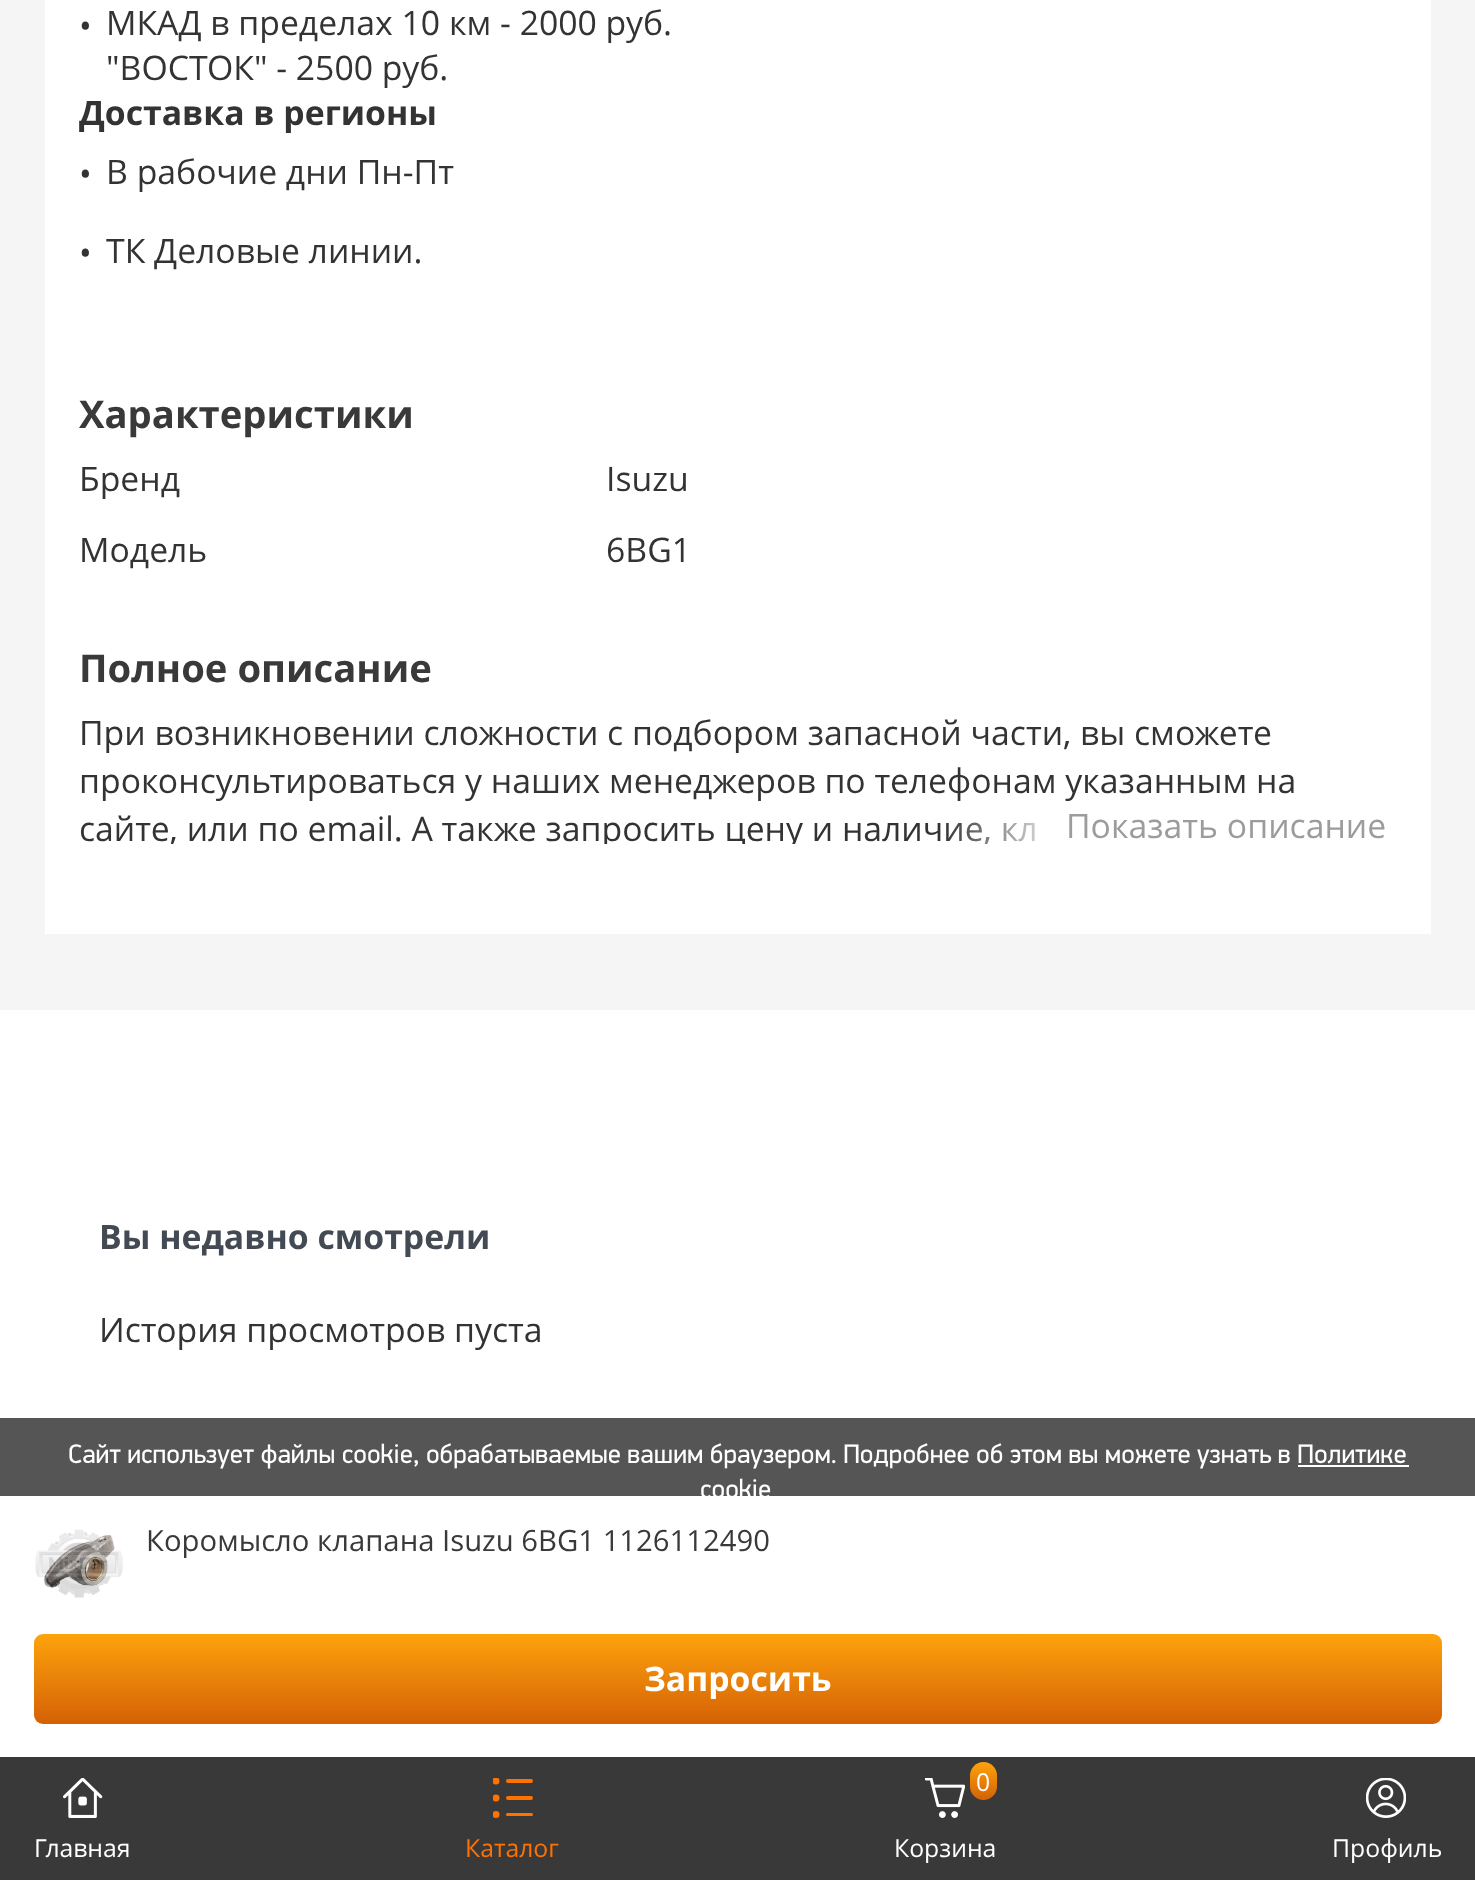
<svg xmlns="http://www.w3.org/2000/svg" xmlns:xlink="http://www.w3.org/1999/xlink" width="1475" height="1880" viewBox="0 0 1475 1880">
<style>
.cls-1{font:33.75px Open Sans;fill:#333333}
.cls-2{font:bold 33.75px Open Sans;fill:#333333}
.cls-3{font:bold 38.25px Open Sans;fill:#393939}
.cls-4{font:33.75px Open Sans;fill:#9c9c9c}
.cls-5{font:29.25px Open Sans;fill:#393939}
.cls-6{font:bold 33.75px Open Sans;fill:#ffffff}
.cls-7{font:24.75px Open Sans;fill:#ffffff}
.cls-8{font:24.75px Open Sans;fill:#ff7200}
.cls-9{font:24.75px Open Sans;letter-spacing:-2px;fill:#ffffff}
.cls-10{font:bold 33.75px Open Sans;fill:#434a54}
.cls-11{font:27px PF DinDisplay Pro;fill:#ffffff}
</style>
<defs>
<linearGradient id="g1" gradientUnits="userSpaceOnUse" x1="738" y1="1634" x2="738" y2="1724"><stop offset="0" stop-color="#fea30d"/><stop offset="1" stop-color="#d46105"/></linearGradient>
<clipPath id="clip1"><rect x="493" y="1778" width="40" height="40"/></clipPath>
<linearGradient id="g2" gradientUnits="userSpaceOnUse" x1="983" y1="1762" x2="983" y2="1800"><stop offset="0" stop-color="#fea30d"/><stop offset="1" stop-color="#d46105"/></linearGradient>
<clipPath id="clip2"><rect x="79" y="709" width="1318" height="135"/></clipPath>
<linearGradient id="g3" gradientUnits="userSpaceOnUse" x1="943" y1="827" x2="1067" y2="827"><stop offset="0" stop-color="#ffffff" stop-opacity="0"/><stop offset="1" stop-color="#ffffff"/></linearGradient>
</defs>
<rect width="100%" height="100%" fill="#f5f5f5"/>
<rect fill="#ffffff" x="45" y="0" width="1386" height="934"/>
<rect fill="#ffffff" x="0" y="1496" width="1475" height="261"/>
<image xlink:href="image0.png" x="35" y="1529" width="88" height="69"/>
<rect fill="url(#g1)" x="34" y="1634" width="1408" height="90" rx="9"/>
<rect fill="#393939" x="0" y="1757" width="1475" height="123"/>
<image xlink:href="image1.png" x="63" y="1778" width="40" height="40"/>
<g clip-path="url(#clip1)">
<circle fill="#ff7200" cx="496" cy="1781" r="3.5"/>
</g>
<rect fill="#ff7200" x="506" y="1779" width="27" height="4" rx="2"/>
<g clip-path="url(#clip1)">
<circle fill="#ff7200" cx="496" cy="1798" r="3.5"/>
</g>
<rect fill="#ff7200" x="506" y="1796" width="27" height="4" rx="2"/>
<g clip-path="url(#clip1)">
<circle fill="#ff7200" cx="496" cy="1814.5" r="3.5"/>
</g>
<rect fill="#ff7200" x="506" y="1813" width="27" height="3" rx="1.5"/>
<image xlink:href="image2.png" x="925" y="1778" width="40" height="40"/>
<rect fill="url(#g2)" x="970" y="1762" width="27" height="38" rx="13.5"/>
<image xlink:href="image3.png" x="1366" y="1778" width="40" height="40"/>
<rect fill="#ffffff" x="0" y="1010" width="1475" height="408"/>
<rect fill="#555555" x="0" y="1418" width="1475" height="78"/>
<rect fill="#ffffff" x="1298" y="1465" width="111" height="2"/>
<text class="cls-1" x="79" y="38">•</text>
<text class="cls-1"><tspan x="106" y="35">МКАД в пределах 10 км - 2000 руб.</tspan><tspan x="106" y="80">"ВОСТОК" - 2500 руб.</tspan></text>
<text class="cls-2" x="79" y="125">Доставка в регионы</text>
<text class="cls-1" x="79" y="186">•</text>
<text class="cls-1" x="106" y="184">В рабочие дни Пн-Пт</text>
<text class="cls-1" x="79" y="265">•</text>
<text class="cls-1" x="106" y="263">ТК Деловые линии.</text>
<text class="cls-3" x="79" y="428">Характеристики</text>
<text class="cls-1" x="79" y="491">Бренд</text>
<text class="cls-1" x="606" y="491">Isuzu</text>
<text class="cls-1" x="79" y="562">Модель</text>
<text class="cls-1" x="606" y="562">6BG1</text>
<text class="cls-3" x="79" y="682">Полное описание</text>
<text class="cls-1"><tspan x="79" y="745">При возникновении сложности с подбором запасной части, вы сможете</tspan><tspan x="79" y="793">проконсультироваться у наших менеджеров по телефонам указанным на</tspan></text>
<g clip-path="url(#clip2)">
<text class="cls-1" x="79" y="841">сайте, или по email. А также запросить цену и наличие, кл</text>
</g>
<rect fill="url(#g3)" x="946" y="822" width="89" height="22"/>
<text class="cls-4" x="1066" y="838">Показать описание</text>
<text class="cls-5" x="146" y="1551">Коромысло клапана Isuzu 6BG1 1126112490</text>
<text class="cls-6" x="644" y="1691">Запросить</text>
<text class="cls-7" x="34" y="1857">Главная</text>
<text class="cls-8" x="465" y="1857">Каталог</text>
<text class="cls-9" x="976" y="1791">0</text>
<text class="cls-7" x="894" y="1857">Корзина</text>
<text class="cls-7" x="1332" y="1857">Профиль</text>
<text class="cls-10" x="99" y="1249">Вы недавно смотрели</text>
<text class="cls-1" x="99" y="1342">История просмотров пуста</text>
<text class="cls-11" x="68" y="1463">Сайт использует файлы cookie, обрабатываемые вашим браузером. Подробнее об этом вы можете узнать в Политике</text>
<text class="cls-11" x="700" y="1498">cookie</text>
</svg>
